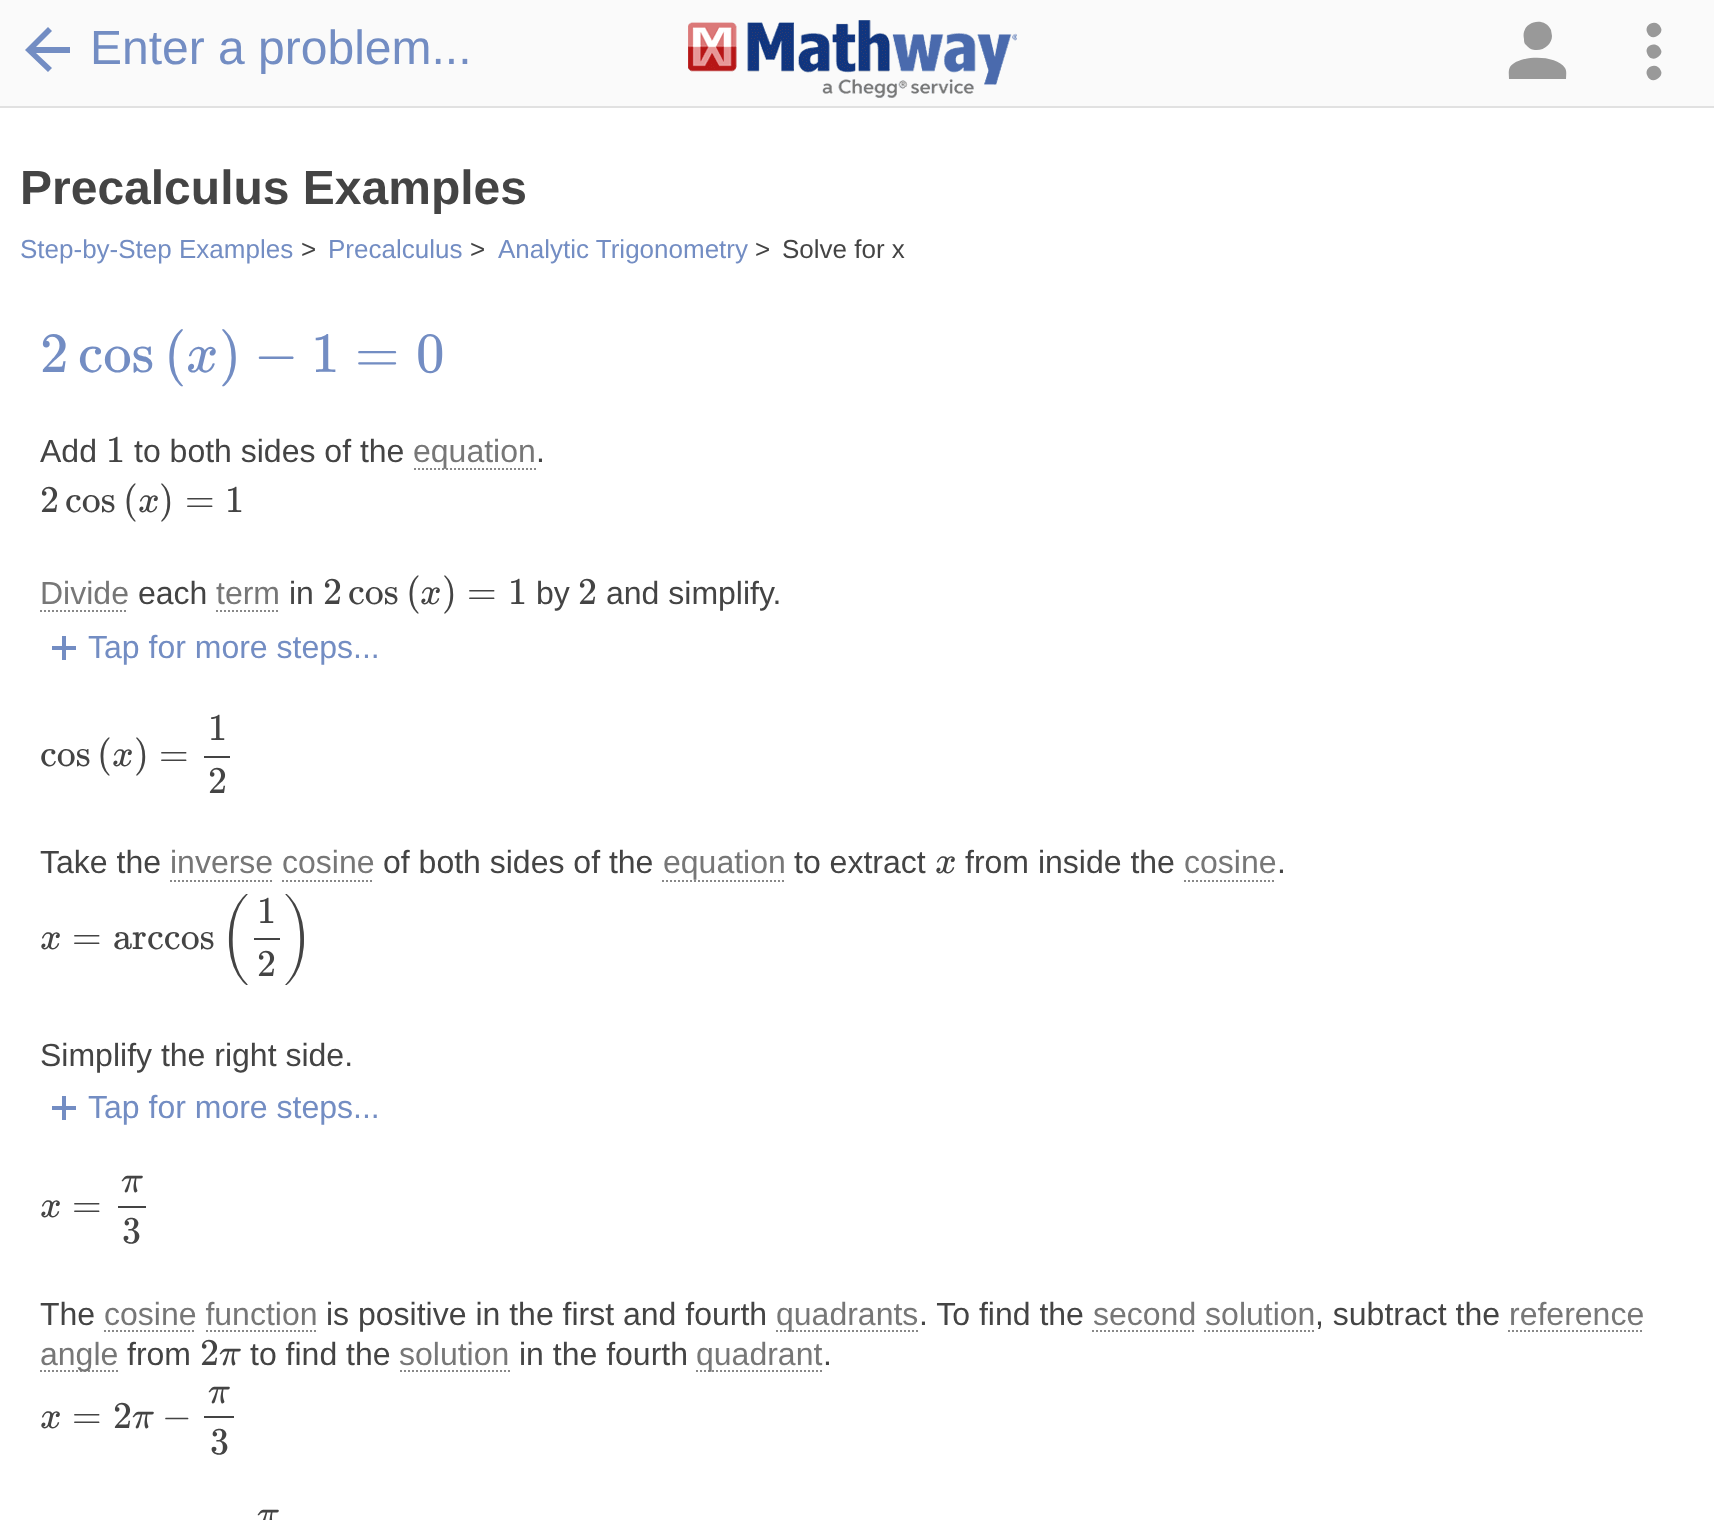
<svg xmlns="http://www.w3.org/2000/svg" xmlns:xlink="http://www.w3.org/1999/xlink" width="1714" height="1520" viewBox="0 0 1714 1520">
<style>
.cls-1{font:48px Liberation Sans;fill:#738dc3}
.cls-2{font:bold 48px Liberation Sans;fill:#444444}
.cls-3{font:26px Liberation Sans;fill:#738dc3}
.cls-4{font:26px Liberation Sans;fill:#444444}
.cls-5{font:57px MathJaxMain;fill:#738dc3}
.cls-6{font:italic 57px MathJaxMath;fill:#738dc3}
.cls-7{font:32px Liberation Sans;fill:#444444}
.cls-8{font:38px MathJaxMain;fill:#444444}
.cls-9{font:32px Liberation Sans;fill:#777777}
.cls-10{font:italic 38px MathJaxMath;fill:#444444}
.cls-11{font:32px Liberation Sans;fill:#738dc3}
.cls-12{font:38px 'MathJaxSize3';fill:#444444}
</style>
<rect width="100%" height="100%" fill="#ffffff"/>
<rect fill="#e1e1e1" x="0" y="106" width="1714" height="2"/>
<rect fill="#fafafa" x="0" y="0" width="1714" height="106"/>
<path fill="#738dc3" d="M48 27L25 50L48 72L52 68L36 53H70V47H36L52 31Z"/>
<image xlink:href="image0.png" x="688" y="20" width="329" height="78"/>
<path fill="#999999" d="M1552 36L1551 30C1544 15 1520 22 1524 39C1524 41 1524 42 1525 44C1528 47 1531 50 1535 50C1544 51 1552 44 1552 36ZM1566 79C1566 75 1567 71 1565 68C1556 54 1518 55 1510 67C1508 71 1509 75 1509 79Z"/>
<path fill="#999999" d="M1661 28C1657 18 1644 24 1647 32C1651 43 1664 34 1661 28ZM1661 50C1657 40 1644 45 1647 53C1651 65 1664 55 1661 50ZM1661 71C1657 61 1644 67 1647 75C1651 86 1664 77 1661 71Z"/>
<path fill="none" stroke="#888888" stroke-width="2" stroke-dasharray="2 2" d="M414 469H536"/>
<path fill="none" stroke="#888888" stroke-width="2" stroke-dasharray="2 2" d="M40 611H128"/>
<path fill="none" stroke="#888888" stroke-width="2" stroke-dasharray="2 2" d="M216 611H280"/>
<rect fill="#738dc3" x="62" y="636" width="4" height="24"/>
<rect fill="#738dc3" x="52" y="646" width="24" height="4"/>
<rect fill="#444444" x="204" y="756" width="26" height="2"/>
<path fill="none" stroke="#888888" stroke-width="2" stroke-dasharray="2 2" d="M170 881H274"/>
<path fill="none" stroke="#888888" stroke-width="2" stroke-dasharray="2 2" d="M662 881H786"/>
<path fill="none" stroke="#888888" stroke-width="2" stroke-dasharray="2 2" d="M1184 881H1276"/>
<path fill="none" stroke="#888888" stroke-width="2" stroke-dasharray="2 2" d="M282 881H374"/>
<rect fill="#444444" x="254" y="938" width="26" height="2"/>
<rect fill="#738dc3" x="62" y="1096" width="4" height="24"/>
<rect fill="#738dc3" x="52" y="1106" width="24" height="4"/>
<rect fill="#444444" x="118" y="1206" width="28" height="2"/>
<path fill="none" stroke="#888888" stroke-width="2" stroke-dasharray="2 2" d="M104 1331H196"/>
<path fill="none" stroke="#888888" stroke-width="2" stroke-dasharray="2 2" d="M776 1331H918"/>
<path fill="none" stroke="#888888" stroke-width="2" stroke-dasharray="2 2" d="M1092 1331H1196"/>
<path fill="none" stroke="#888888" stroke-width="2" stroke-dasharray="2 2" d="M1508 1331H1644"/>
<path fill="none" stroke="#888888" stroke-width="2" stroke-dasharray="2 2" d="M206 1331H318"/>
<path fill="none" stroke="#888888" stroke-width="2" stroke-dasharray="2 2" d="M1204 1331H1314"/>
<path fill="none" stroke="#888888" stroke-width="2" stroke-dasharray="2 2" d="M40 1371H118"/>
<path fill="none" stroke="#888888" stroke-width="2" stroke-dasharray="2 2" d="M400 1371H510"/>
<path fill="none" stroke="#888888" stroke-width="2" stroke-dasharray="2 2" d="M696 1371H822"/>
<rect fill="#444444" x="204" y="1416" width="30" height="2"/>
<text class="cls-1" x="90" y="64">Enter a problem...</text>
<text class="cls-2" x="20" y="204">Precalculus Examples</text>
<text class="cls-3" x="20" y="258">Step-by-Step Examples</text>
<text class="cls-4" x="301" y="258">&gt;</text>
<text class="cls-3" x="328" y="258">Precalculus</text>
<text class="cls-4" x="470" y="258">&gt;</text>
<text class="cls-3" x="498" y="258">Analytic Trigonometry</text>
<text class="cls-4" x="755" y="258">&gt;</text>
<text class="cls-4" x="782" y="258">Solve for x</text>
<text class="cls-5" x="40" y="372">2</text>
<text class="cls-5" x="78" y="372">cos</text>
<text class="cls-5" x="164" y="372">(</text>
<text class="cls-6" x="186" y="372">x</text>
<text class="cls-5" x="219" y="372">)</text>
<text class="cls-5" x="254" y="372">−</text>
<text class="cls-5" x="311" y="372">1</text>
<text class="cls-5" x="355" y="372">=</text>
<text class="cls-5" x="416" y="372">0</text>
<text class="cls-7" x="40" y="462">Add</text>
<text class="cls-8" x="106" y="462">1</text>
<text class="cls-7" x="134" y="462">to both sides of the</text>
<text class="cls-9" x="413" y="462">equation</text>
<text class="cls-7" x="536" y="462">.</text>
<text class="cls-8" x="40" y="512">2</text>
<text class="cls-8" x="65" y="512">cos</text>
<text class="cls-8" x="123" y="512">(</text>
<text class="cls-10" x="138" y="512">x</text>
<text class="cls-8" x="159" y="512">)</text>
<text class="cls-8" x="185" y="512">=</text>
<text class="cls-8" x="225" y="512">1</text>
<text class="cls-9" x="40" y="604">Divide</text>
<text class="cls-7" x="138" y="604">each</text>
<text class="cls-9" x="216" y="604">term</text>
<text class="cls-7" x="289" y="604">in</text>
<text class="cls-8" x="323" y="604">2</text>
<text class="cls-8" x="348" y="604">cos</text>
<text class="cls-8" x="406" y="604">(</text>
<text class="cls-10" x="420" y="604">x</text>
<text class="cls-8" x="442" y="604">)</text>
<text class="cls-8" x="467" y="604">=</text>
<text class="cls-8" x="508" y="604">1</text>
<text class="cls-7" x="536" y="604">by</text>
<text class="cls-8" x="578" y="604">2</text>
<text class="cls-7" x="606" y="604">and simplify.</text>
<text class="cls-11" x="88" y="658">Tap for more steps...</text>
<text class="cls-8" x="40" y="766">cos</text>
<text class="cls-8" x="97" y="766">(</text>
<text class="cls-10" x="112" y="766">x</text>
<text class="cls-8" x="134" y="766">)</text>
<text class="cls-8" x="159" y="766">=</text>
<text class="cls-8"><tspan x="208" y="740">1</tspan><tspan x="208" y="793">2</tspan></text>
<text class="cls-7" x="40" y="873">Take the</text>
<text class="cls-9" x="170" y="873">inverse cosine</text>
<text class="cls-7" x="383" y="873">of both sides of the</text>
<text class="cls-9" x="663" y="873">equation</text>
<text class="cls-7" x="794" y="873">to extract</text>
<text class="cls-10" x="935" y="873">x</text>
<text class="cls-7" x="965" y="873">from inside the</text>
<text class="cls-9" x="1184" y="873">cosine</text>
<text class="cls-7" x="1277" y="873">.</text>
<text class="cls-10" x="40" y="949">x</text>
<text class="cls-8" x="72" y="949">=</text>
<text class="cls-8" x="113" y="949">arccos</text>
<text class="cls-12" x="221" y="949">(</text>
<text class="cls-8"><tspan x="257" y="923">1</tspan><tspan x="257" y="976">2</tspan></text>
<text class="cls-12" x="284" y="949">)</text>
<text class="cls-7" x="40" y="1066">Simplify the right side.</text>
<text class="cls-11" x="88" y="1118">Tap for more steps...</text>
<text class="cls-10" x="40" y="1217">x</text>
<text class="cls-8" x="72" y="1217">=</text>
<text class="cls-10" x="121" y="1192">π</text>
<text class="cls-8" x="122" y="1243">3</text>
<text class="cls-7" x="40" y="1325">The</text>
<text class="cls-9" x="104" y="1325">cosine function</text>
<text class="cls-7" x="326" y="1325">is positive in the first and fourth</text>
<text class="cls-9" x="776" y="1325">quadrants</text>
<text class="cls-7" x="919" y="1325">. To find the</text>
<text class="cls-9" x="1093" y="1325">second solution</text>
<text class="cls-7" x="1315" y="1325">, subtract the</text>
<text class="cls-9" x="1509" y="1325">reference</text>
<text class="cls-9" x="40" y="1365">angle</text>
<text class="cls-7" x="127" y="1365">from</text>
<text class="cls-8" x="200" y="1365">2</text>
<text class="cls-10" x="219" y="1365">π</text>
<text class="cls-7" x="250" y="1365">to find the</text>
<text class="cls-9" x="399" y="1365">solution</text>
<text class="cls-7" x="519" y="1365">in the fourth</text>
<text class="cls-9" x="696" y="1365">quadrant</text>
<text class="cls-7" x="823" y="1365">.</text>
<text class="cls-10" x="40" y="1428">x</text>
<text class="cls-8" x="72" y="1428">=</text>
<text class="cls-8" x="113" y="1428">2</text>
<text class="cls-10" x="132" y="1428">π</text>
<text class="cls-8" x="162" y="1428">−</text>
<text class="cls-10" x="208" y="1403">π</text>
<text class="cls-8" x="210" y="1454">3</text>
<text class="cls-10" x="257" y="1526">π</text>
</svg>
